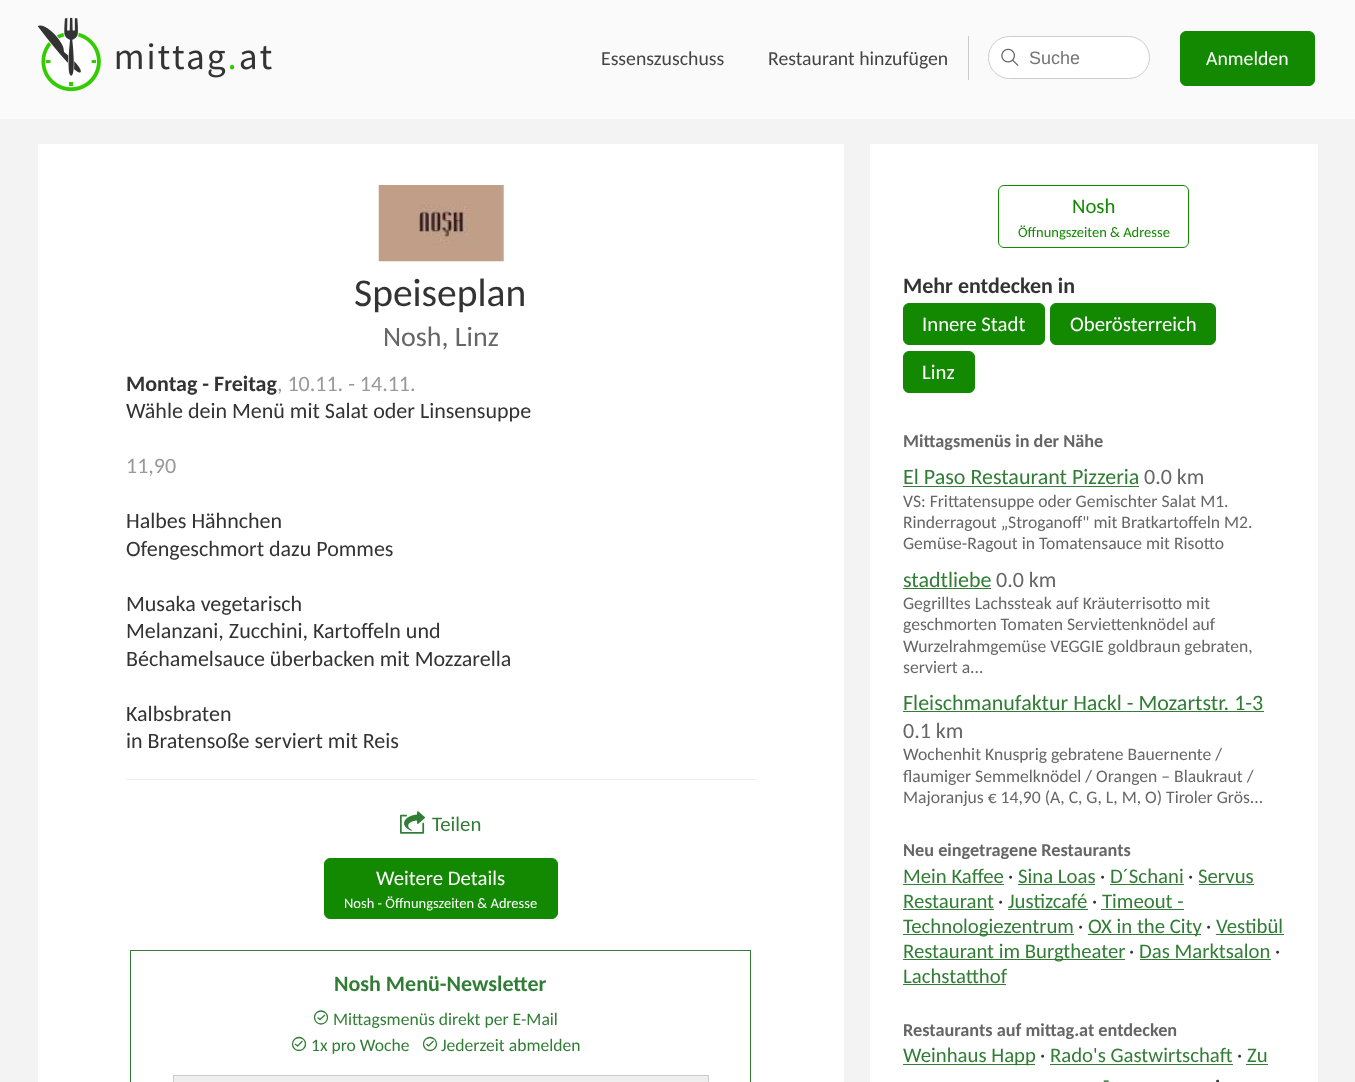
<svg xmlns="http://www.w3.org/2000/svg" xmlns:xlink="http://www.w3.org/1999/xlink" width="1355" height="1082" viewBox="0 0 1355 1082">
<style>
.cls-1{font:19.75px Carlito;fill:#444444}
.cls-2{font:18px Liberation Sans;fill:#757575}
.cls-3{font:19.75px Carlito;fill:#ffffff}
.cls-4{font:39.5px Carlito;fill:#333333}
.cls-5{font:28px Carlito;fill:#666666}
.cls-6{font:bold 22px Carlito;fill:#333333}
.cls-7{font:22px Carlito;fill:#999999}
.cls-8{font:22px Carlito;fill:#333333}
.cls-9{font:20.75px Carlito;fill:#317d35}
.cls-10{font:20.75px Carlito;fill:#ffffff}
.cls-11{font:14.5px Carlito;fill:#ffffff}
.cls-12{font:bold 22px Carlito;fill:#317d35}
.cls-13{font:17.6px Carlito;fill:#317d35}
.cls-14{font:20.75px Carlito;fill:#128901}
.cls-15{font:14.5px Carlito;fill:#128901}
.cls-16{font:bold 18.25px Carlito;fill:#666666}
.cls-17{font:22px Carlito;fill:#317d35}
.cls-18{font:22px Carlito;fill:#666666}
.cls-19{font:17.6px Carlito;fill:#666666}
.cls-20{font:20.75px Carlito;fill:#333333}
</style>
<defs>
<clipPath id="clip1"><rect x="291" y="1036" width="15" height="15"/></clipPath>
<clipPath id="clip2"><rect x="423" y="1036" width="15" height="15"/></clipPath>
</defs>
<rect width="100%" height="100%" fill="#f3f3f3"/>
<rect fill="#fafafa" x="0" y="0" width="1355" height="119"/>
<image xlink:href="image0.png" x="37" y="17" width="235" height="75"/>
<rect fill="#cccccc" x="968" y="36" width="1" height="44"/>
<rect fill="#ffffff" stroke="#cccccc" x="988.5" y="36.5" width="161" height="42" rx="21"/>
<image xlink:href="image1.png" x="1001" y="48" width="18" height="18"/>
<rect fill="#128901" stroke="#128901" x="1180.5" y="31.5" width="134" height="54" rx="5.5"/>
<rect fill="#ffffff" x="38" y="144" width="806" height="938"/>
<image xlink:href="image2.png" x="378" y="185" width="126" height="77"/>
<rect fill="#eeeeee" x="126" y="779" width="630" height="1"/>
<image xlink:href="image3.png" x="400" y="811" width="25" height="23"/>
<rect fill="#128901" stroke="#128901" x="324.5" y="858.5" width="233" height="60" rx="5.5"/>
<rect fill="none" stroke="#317d35" x="130.5" y="950.5" width="620" height="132"/>
<circle fill="none" stroke="#317d35" stroke-width="1.3" cx="321" cy="1017.5" r="6.5"/>
<path fill="none" stroke="#317d35" stroke-width="1.3" stroke-linejoin="round" d="M317.5 1017.5L320 1019.5L325 1015"/>
<g clip-path="url(#clip1)">
<circle fill="none" stroke="#317d35" stroke-width="1.3" cx="299" cy="1044" r="6.5"/>
</g>
<path fill="none" stroke="#317d35" stroke-width="1.3" stroke-linejoin="round" d="M295 1044L297.5 1046L302.5 1041"/>
<g clip-path="url(#clip2)">
<circle fill="none" stroke="#317d35" stroke-width="1.3" cx="430" cy="1044" r="6.5"/>
</g>
<path fill="none" stroke="#317d35" stroke-width="1.3" stroke-linejoin="round" d="M426.5 1044L428.5 1046L433.5 1041"/>
<rect fill="#efefef" stroke="#cccccc" x="173.5" y="1075.5" width="535" height="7"/>
<rect fill="#ffffff" x="870" y="144" width="448" height="938"/>
<rect fill="none" stroke="#128901" x="998.5" y="185.5" width="190" height="62" rx="5.5"/>
<rect fill="#128901" stroke="#128901" x="903.5" y="303.5" width="141" height="41" rx="5.5"/>
<rect fill="#128901" stroke="#128901" x="1050.5" y="303.5" width="165" height="41" rx="5.5"/>
<rect fill="#128901" stroke="#128901" x="903.5" y="351.5" width="71" height="41" rx="5.5"/>
<rect fill="#317d35" x="903" y="486" width="236" height="1"/>
<rect fill="#317d35" x="903" y="588" width="88" height="1"/>
<rect fill="#317d35" x="903" y="711" width="361" height="1"/>
<rect fill="#317d35" x="903" y="884" width="101" height="1"/>
<rect fill="#317d35" x="1018" y="884" width="77" height="1"/>
<rect fill="#317d35" x="1110" y="884" width="74" height="1"/>
<rect fill="#317d35" x="1199" y="884" width="55" height="1"/>
<rect fill="#317d35" x="903" y="909" width="91" height="1"/>
<rect fill="#317d35" x="1008" y="909" width="80" height="1"/>
<rect fill="#317d35" x="1101" y="909" width="83" height="1"/>
<rect fill="#317d35" x="903" y="934" width="171" height="1"/>
<rect fill="#317d35" x="1088" y="934" width="113" height="1"/>
<rect fill="#317d35" x="1216" y="934" width="68" height="1"/>
<rect fill="#317d35" x="903" y="959" width="222" height="1"/>
<rect fill="#317d35" x="1140" y="959" width="131" height="1"/>
<rect fill="#317d35" x="903" y="984" width="103" height="1"/>
<rect fill="#317d35" x="903" y="1064" width="132" height="1"/>
<rect fill="#317d35" x="1050" y="1064" width="183" height="1"/>
<rect fill="#317d35" x="1246" y="1064" width="22" height="1"/>
<text class="cls-1" x="601" y="65">Essenszuschuss</text>
<text class="cls-1" x="768" y="65">Restaurant hinzufügen</text>
<text class="cls-2" x="1029" y="64">Suche</text>
<text class="cls-3" x="1206" y="65">Anmelden</text>
<text class="cls-4" x="354" y="306">Speiseplan</text>
<text class="cls-5" x="383" y="346">Nosh, Linz</text>
<text class="cls-6" x="126" y="391">Montag - Freitag</text>
<text class="cls-7" x="277" y="391">, 10.11. - 14.11.</text>
<text class="cls-8" x="126" y="418">Wähle dein Menü mit Salat oder Linsensuppe</text>
<text class="cls-7" x="126" y="473">11,90</text>
<text class="cls-8"><tspan x="126" y="528">Halbes Hähnchen</tspan><tspan x="126" y="556">Ofengeschmort dazu Pommes</tspan></text>
<text class="cls-8"><tspan x="126" y="611">Musaka vegetarisch</tspan><tspan x="126" y="638">Melanzani, Zucchini, Kartoffeln und</tspan><tspan x="126" y="666">Béchamelsauce überbacken mit Mozzarella</tspan></text>
<text class="cls-8"><tspan x="126" y="721">Kalbsbraten</tspan><tspan x="126" y="748">in Bratensoße serviert mit Reis</tspan></text>
<text class="cls-9" x="432" y="831">Teilen</text>
<text class="cls-10" x="376" y="885">Weitere Details</text>
<text class="cls-11" x="344" y="908">Nosh - Öffnungszeiten &amp; Adresse</text>
<text class="cls-12" x="334" y="991">Nosh Menü-Newsletter</text>
<text class="cls-13" x="333" y="1025">Mittagsmenüs direkt per E-Mail</text>
<text class="cls-13" x="311" y="1051">1x pro Woche</text>
<text class="cls-13" x="441" y="1051">Jederzeit abmelden</text>
<text class="cls-14" x="1072" y="213">Nosh</text>
<text class="cls-15" x="1018" y="237">Öffnungszeiten &amp; Adresse</text>
<text class="cls-6" x="903" y="293">Mehr entdecken in</text>
<text class="cls-10" x="922" y="331">Innere Stadt</text>
<text class="cls-10" x="1070" y="331">Oberösterreich</text>
<text class="cls-10" x="922" y="379">Linz</text>
<text class="cls-16" x="903" y="447">Mittagsmenüs in der Nähe</text>
<text class="cls-17" x="903" y="484">El Paso Restaurant Pizzeria</text>
<text class="cls-18" x="1144" y="484">0.0 km</text>
<text class="cls-19"><tspan x="903" y="507">VS: Frittatensuppe oder Gemischter Salat M1.</tspan><tspan x="903" y="528">Rinderragout „Stroganoff" mit Bratkartoffeln M2.</tspan><tspan x="903" y="549">Gemüse-Ragout in Tomatensauce mit Risotto</tspan></text>
<text class="cls-17" x="903" y="587">stadtliebe</text>
<text class="cls-18" x="996" y="587">0.0 km</text>
<text class="cls-19"><tspan x="903" y="609">Gegrilltes Lachssteak auf Kräuterrisotto mit</tspan><tspan x="903" y="630">geschmorten Tomaten Serviettenknödel auf</tspan><tspan x="903" y="652">Wurzelrahmgemüse VEGGIE goldbraun gebraten,</tspan><tspan x="903" y="673">serviert a...</tspan></text>
<text class="cls-17" x="903" y="710">Fleischmanufaktur Hackl - Mozartstr. 1-3</text>
<text class="cls-18" x="903" y="738">0.1 km</text>
<text class="cls-19"><tspan x="903" y="760">Wochenhit Knusprig gebratene Bauernente /</tspan><tspan x="903" y="782">flaumiger Semmelknödel / Orangen – Blaukraut /</tspan><tspan x="903" y="803">Majoranjus € 14,90 (A, C, G, L, M, O) Tiroler Grös...</tspan></text>
<text class="cls-16" x="903" y="856">Neu eingetragene Restaurants</text>
<text class="cls-9" x="903" y="883">Mein Kaffee</text>
<text class="cls-20" x="1008" y="883">·</text>
<text class="cls-9" x="1018" y="883">Sina Loas</text>
<text class="cls-20" x="1100" y="883">·</text>
<text class="cls-9" x="1110" y="883">D´Schani</text>
<text class="cls-20" x="1188" y="883">·</text>
<text class="cls-9" x="1198" y="883">Servus</text>
<text class="cls-9" x="903" y="908">Restaurant</text>
<text class="cls-20" x="998" y="908">·</text>
<text class="cls-9" x="1008" y="908">Justizcafé</text>
<text class="cls-20" x="1092" y="908">·</text>
<text class="cls-9" x="1102" y="908">Timeout -</text>
<text class="cls-9" x="903" y="933">Technologiezentrum</text>
<text class="cls-20" x="1078" y="933">·</text>
<text class="cls-9" x="1088" y="933">OX in the City</text>
<text class="cls-20" x="1206" y="933">·</text>
<text class="cls-9" x="1216" y="933">Vestibül</text>
<text class="cls-9" x="903" y="958">Restaurant im Burgtheater</text>
<text class="cls-20" x="1129" y="958">·</text>
<text class="cls-9" x="1139" y="958">Das Marktsalon</text>
<text class="cls-20" x="1275" y="958">·</text>
<text class="cls-9" x="903" y="983">Lachstatthof</text>
<text class="cls-16" x="903" y="1036">Restaurants auf mittag.at entdecken</text>
<text class="cls-9" x="903" y="1062">Weinhaus Happ</text>
<text class="cls-20" x="1040" y="1062">·</text>
<text class="cls-9" x="1050" y="1062">Rado's Gastwirtschaft</text>
<text class="cls-20" x="1237" y="1062">·</text>
<text class="cls-9" x="1247" y="1062">Zu</text>
<text class="cls-9" x="1103" y="1087">-</text>
<text class="cls-20" x="1215" y="1087">·</text>
</svg>
